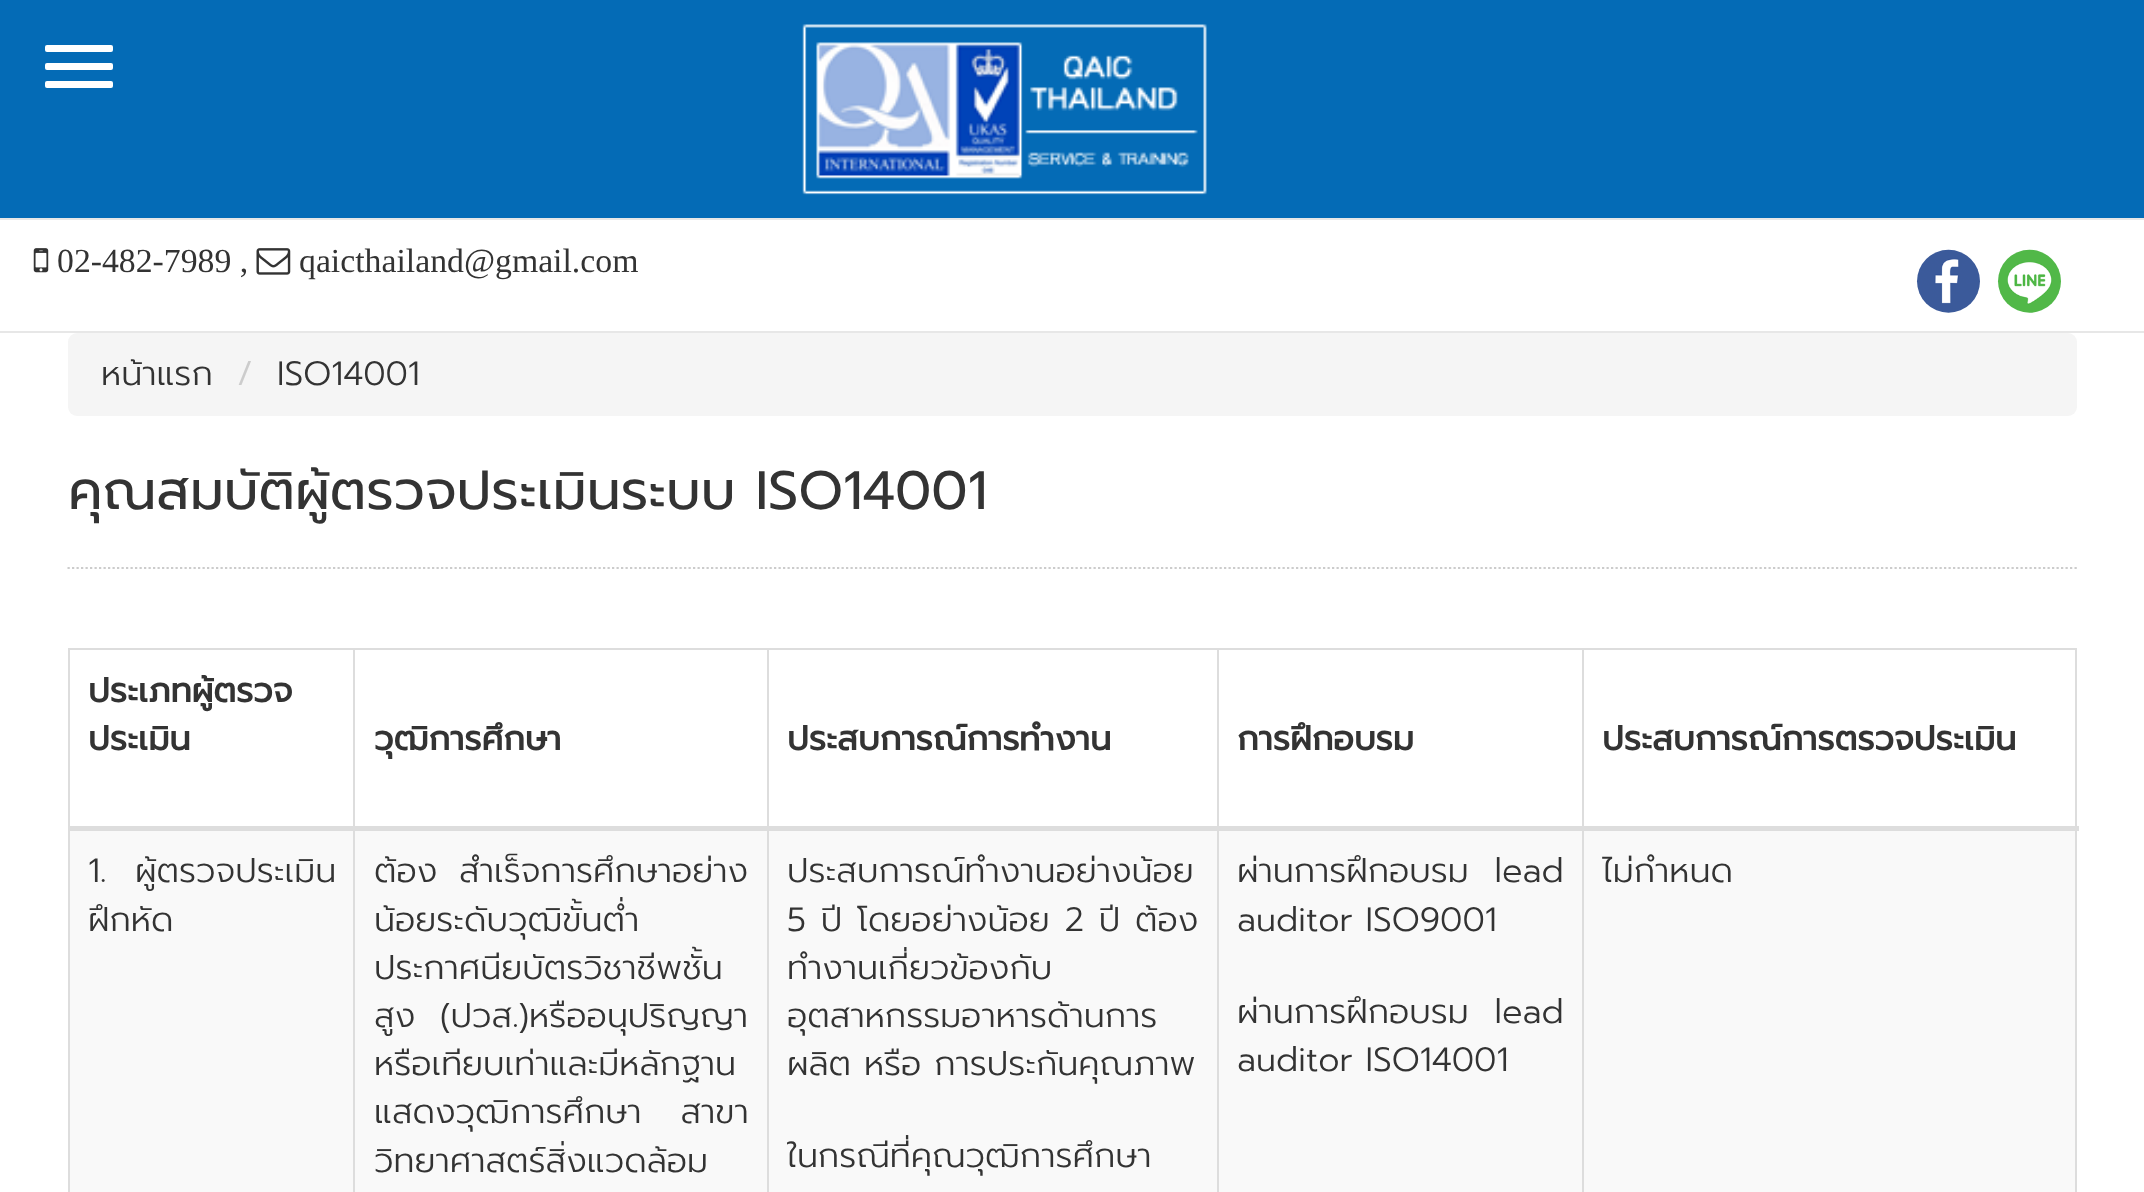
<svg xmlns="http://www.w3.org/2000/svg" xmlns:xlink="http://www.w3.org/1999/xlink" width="2144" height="1192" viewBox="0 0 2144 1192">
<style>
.cls-1{font:33.75px Liberation Serif;fill:#333333}
.cls-2{font:300 33.75px Prompt;fill:#333333}
.cls-3{font:300 33.75px Prompt;fill:#cccccc}
.cls-4{font:54px Prompt;fill:#333333}
.cls-5{font:bold 33.75px Prompt;fill:#333333}
</style>
<rect width="100%" height="100%" fill="#ffffff"/>
<rect fill="#046bb6" x="0" y="0" width="2144" height="218"/>
<rect fill="#ffffff" x="45" y="45" width="68" height="7" rx="2"/>
<rect fill="#ffffff" x="45" y="63" width="68" height="7" rx="2"/>
<rect fill="#ffffff" x="45" y="81" width="68" height="7" rx="2"/>
<image xlink:href="image0.png" x="802" y="24" width="405" height="171"/>
<rect fill="#e7e7e7" x="0" y="218" width="2144" height="2"/>
<rect fill="#e7e7e7" x="0" y="331" width="2144" height="2"/>
<image xlink:href="image1.png" x="33" y="248" width="16" height="25"/>
<image xlink:href="image2.png" x="256" y="248" width="35" height="27"/>
<image xlink:href="image3.png" x="1916" y="249" width="64" height="64"/>
<image xlink:href="image4.png" x="1997" y="249" width="64" height="64"/>
<rect fill="#f5f5f5" x="68" y="333" width="2009" height="83" rx="9"/>
<path fill="none" stroke="#cccccc" stroke-width="2.2" stroke-dasharray="2.25 2.25" d="M67.5 568H2077"/>
<rect fill="#dddddd" x="68" y="648" width="2009" height="2"/>
<rect fill="#dddddd" x="2075" y="648" width="2" height="544"/>
<rect fill="#dddddd" x="68" y="648" width="2" height="544"/>
<rect fill="#f9f9f9" x="70" y="831" width="2005" height="361"/>
<rect fill="#dddddd" x="353" y="648" width="2" height="544"/>
<rect fill="#dddddd" x="767" y="648" width="2" height="544"/>
<rect fill="#dddddd" x="1217" y="648" width="2" height="544"/>
<rect fill="#dddddd" x="1582" y="648" width="2" height="544"/>
<rect fill="#dddddd" x="68" y="826" width="2011" height="5"/>
<text class="cls-1" x="57" y="272">02-482-7989 ,</text>
<text class="cls-1" x="299" y="272">qaicthailand@gmail.com</text>
<text class="cls-2" x="101" y="385">หน้าแรก</text>
<text class="cls-3" x="237" y="385">/</text>
<text class="cls-2" x="277" y="385">ISO14001</text>
<text class="cls-4" x="68" y="509">คุณสมบัติผู้ตรวจประเมินระบบ ISO14001</text>
<text class="cls-5"><tspan x="88" y="702">ประเภทผู้ตรวจ</tspan><tspan x="88" y="750">ประเมิน</tspan></text>
<text class="cls-5" x="374" y="750">วุฒิการศึกษา</text>
<text class="cls-5" x="787" y="750">ประสบการณ์การทำงาน</text>
<text class="cls-5" x="1237" y="750">การฝึกอบรม</text>
<text class="cls-5" x="1602" y="750">ประสบการณ์การตรวจประเมิน</text>
<text class="cls-2"><tspan x="88" y="882" word-spacing="16">1. ผู้ตรวจประเมิน</tspan><tspan x="88" y="931">ฝึกหัด</tspan></text>
<text class="cls-2"><tspan x="374" y="882" word-spacing="9">ต้อง สําเร็จการศึกษาอย่าง</tspan><tspan x="374" y="931">น้อยระดับวุฒิขั้นตํ่า</tspan><tspan x="374" y="979">ประกาศนียบัตรวิชาชีพชั้น</tspan><tspan x="374" y="1027" word-spacing="12">สูง (ปวส.)หรืออนุปริญญา</tspan><tspan x="374" y="1075">หรือเทียบเท่าและมีหลักฐาน</tspan><tspan x="374" y="1123" word-spacing="26">แสดงวุฒิการศึกษา สาขา</tspan><tspan x="374" y="1172">วิทยาศาสตร์สิ่งแวดล้อม</tspan></text>
<text class="cls-2"><tspan x="787" y="882">ประสบการณ์ทำงานอย่างน้อย</tspan><tspan x="787" y="931" word-spacing="2">5 ปี โดยอย่างน้อย 2 ปี ต้อง</tspan><tspan x="787" y="979">ทำงานเกี่ยวข้องกับ</tspan><tspan x="787" y="1027">อุตสาหกรรมอาหารด้านการ</tspan><tspan x="787" y="1075">ผลิต หรือ การประกันคุณภาพ</tspan></text>
<text class="cls-2" x="787" y="1167">ในกรณีที่คุณวุฒิการศึกษา</text>
<text class="cls-2"><tspan x="1237" y="882" word-spacing="13">ผ่านการฝึกอบรม lead</tspan><tspan x="1237" y="931">auditor ISO9001</tspan></text>
<text class="cls-2"><tspan x="1237" y="1023" word-spacing="13">ผ่านการฝึกอบรม lead</tspan><tspan x="1237" y="1071">auditor ISO14001</tspan></text>
<text class="cls-2" x="1602" y="882">ไม่กำหนด</text>
</svg>
